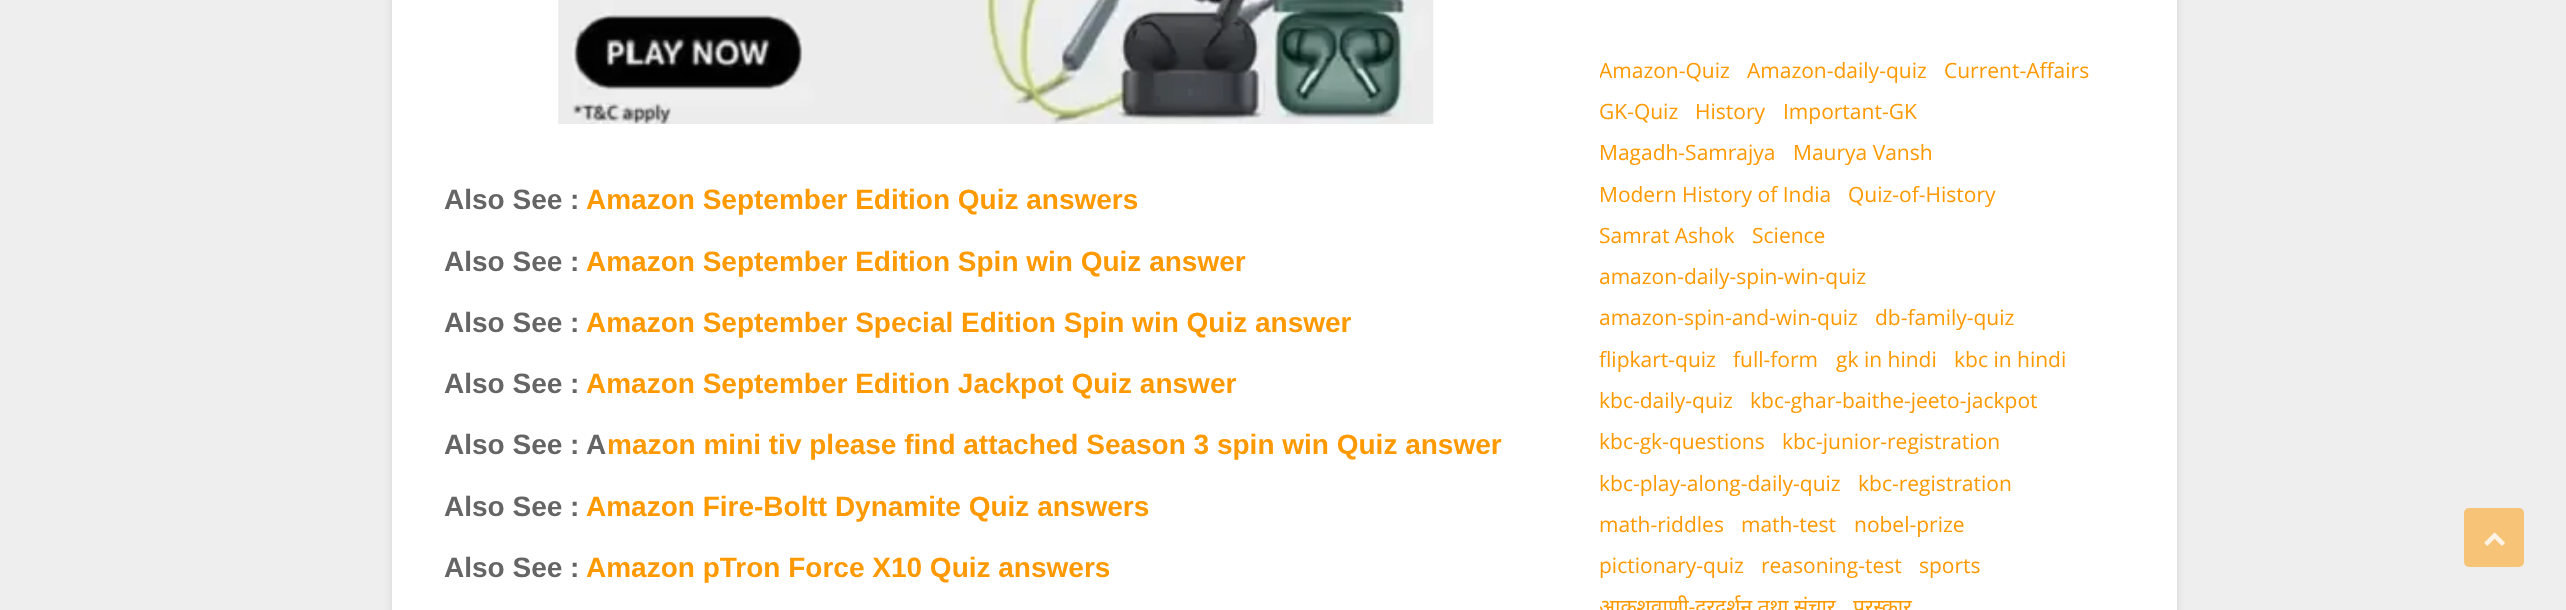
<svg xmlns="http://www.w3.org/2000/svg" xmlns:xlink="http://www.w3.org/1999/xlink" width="2566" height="610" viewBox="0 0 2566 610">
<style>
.cls-1{font:bold 28px Liberation Sans;fill:#656565}
.cls-2{font:bold 28px Liberation Sans;fill:#ff9900}
.cls-3{font:21px Open Sans;fill:#ff9900}
.cls-4{font:21px Noto Sans;fill:#ff9900}
</style>
<defs>
<clipPath id="clip1"><rect x="1600" y="0" width="525" height="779"/></clipPath>
</defs>
<rect width="100%" height="100%" fill="#eeeeee"/>
<rect fill="#000000" fill-opacity="0.1" filter="blur(4.5px)" x="392" y="-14" width="1785" height="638"/>
<rect fill="#ffffff" x="392" y="0" width="1785" height="610"/>
<image xlink:href="image0.png" x="558" y="0" width="876" height="124"/>
<rect fill="#f7c477" x="2464" y="508" width="60" height="59" rx="5"/>
<image xlink:href="image1.png" x="2484" y="532" width="21" height="14"/>
<text class="cls-1" x="444" y="209">Also See :</text>
<text class="cls-2" x="586" y="209">Amazon September Edition Quiz answers</text>
<text class="cls-1" x="444" y="271">Also See :</text>
<text class="cls-2" x="586" y="271">Amazon September Edition Spin win Quiz answer</text>
<text class="cls-1" x="444" y="332">Also See :</text>
<text class="cls-2" x="586" y="332">Amazon September Special Edition Spin win Quiz answer</text>
<text class="cls-1" x="444" y="393">Also See :</text>
<text class="cls-2" x="586" y="393">Amazon September Edition Jackpot Quiz answer</text>
<text class="cls-1" x="444" y="454">Also See : A</text>
<text class="cls-2" x="607" y="454">mazon mini tiv please find attached Season 3 spin win Quiz answer</text>
<text class="cls-1" x="444" y="516">Also See :</text>
<text class="cls-2" x="586" y="516">Amazon Fire-Boltt Dynamite Quiz answers</text>
<text class="cls-1" x="444" y="577">Also See :</text>
<text class="cls-2" x="586" y="577">Amazon pTron Force X10 Quiz answers</text>
<g clip-path="url(#clip1)">
<text class="cls-3" x="1599" y="78">Amazon-Quiz</text>
</g>
<text class="cls-3" x="1747" y="78">Amazon-daily-quiz</text>
<text class="cls-3" x="1944" y="78">Current-Affairs</text>
<text class="cls-3" x="1599" y="119">GK-Quiz</text>
<text class="cls-3" x="1695" y="119">History</text>
<text class="cls-3" x="1783" y="119">Important-GK</text>
<text class="cls-3" x="1599" y="160">Magadh-Samrajya</text>
<text class="cls-3" x="1793" y="160">Maurya Vansh</text>
<text class="cls-3" x="1599" y="202">Modern History of India</text>
<text class="cls-3" x="1848" y="202">Quiz-of-History</text>
<g clip-path="url(#clip1)">
<text class="cls-3" x="1599" y="243">Samrat Ashok</text>
</g>
<text class="cls-3" x="1752" y="243">Science</text>
<g clip-path="url(#clip1)">
<text class="cls-3"><tspan x="1599" y="284">amazon-daily-spin-win-quiz</tspan><tspan x="1599" y="325">amazon-spin-and-win-quiz</tspan></text>
</g>
<text class="cls-3" x="1875" y="325">db-family-quiz</text>
<text class="cls-3" x="1599" y="367">flipkart-quiz</text>
<text class="cls-3" x="1733" y="367">full-form</text>
<text class="cls-3" x="1836" y="367">gk in hindi</text>
<text class="cls-3" x="1954" y="367">kbc in hindi</text>
<text class="cls-3" x="1599" y="408">kbc-daily-quiz</text>
<text class="cls-3" x="1750" y="408">kbc-ghar-baithe-jeeto-jackpot</text>
<text class="cls-3" x="1599" y="449">kbc-gk-questions</text>
<text class="cls-3" x="1782" y="449">kbc-junior-registration</text>
<text class="cls-3" x="1599" y="491">kbc-play-along-daily-quiz</text>
<text class="cls-3" x="1858" y="491">kbc-registration</text>
<text class="cls-3" x="1599" y="532">math-riddles</text>
<text class="cls-3" x="1741" y="532">math-test</text>
<text class="cls-3" x="1854" y="532">nobel-prize</text>
<text class="cls-3" x="1599" y="573">pictionary-quiz</text>
<text class="cls-3" x="1761" y="573">reasoning-test</text>
<text class="cls-3" x="1919" y="573">sports</text>
<g clip-path="url(#clip1)">
<text class="cls-4" x="1599" y="614">आकशवाणी-दूरदर्शन तथा संचार</text>
</g>
<text class="cls-4" x="1853" y="614">पुरस्‍कार</text>
</svg>
